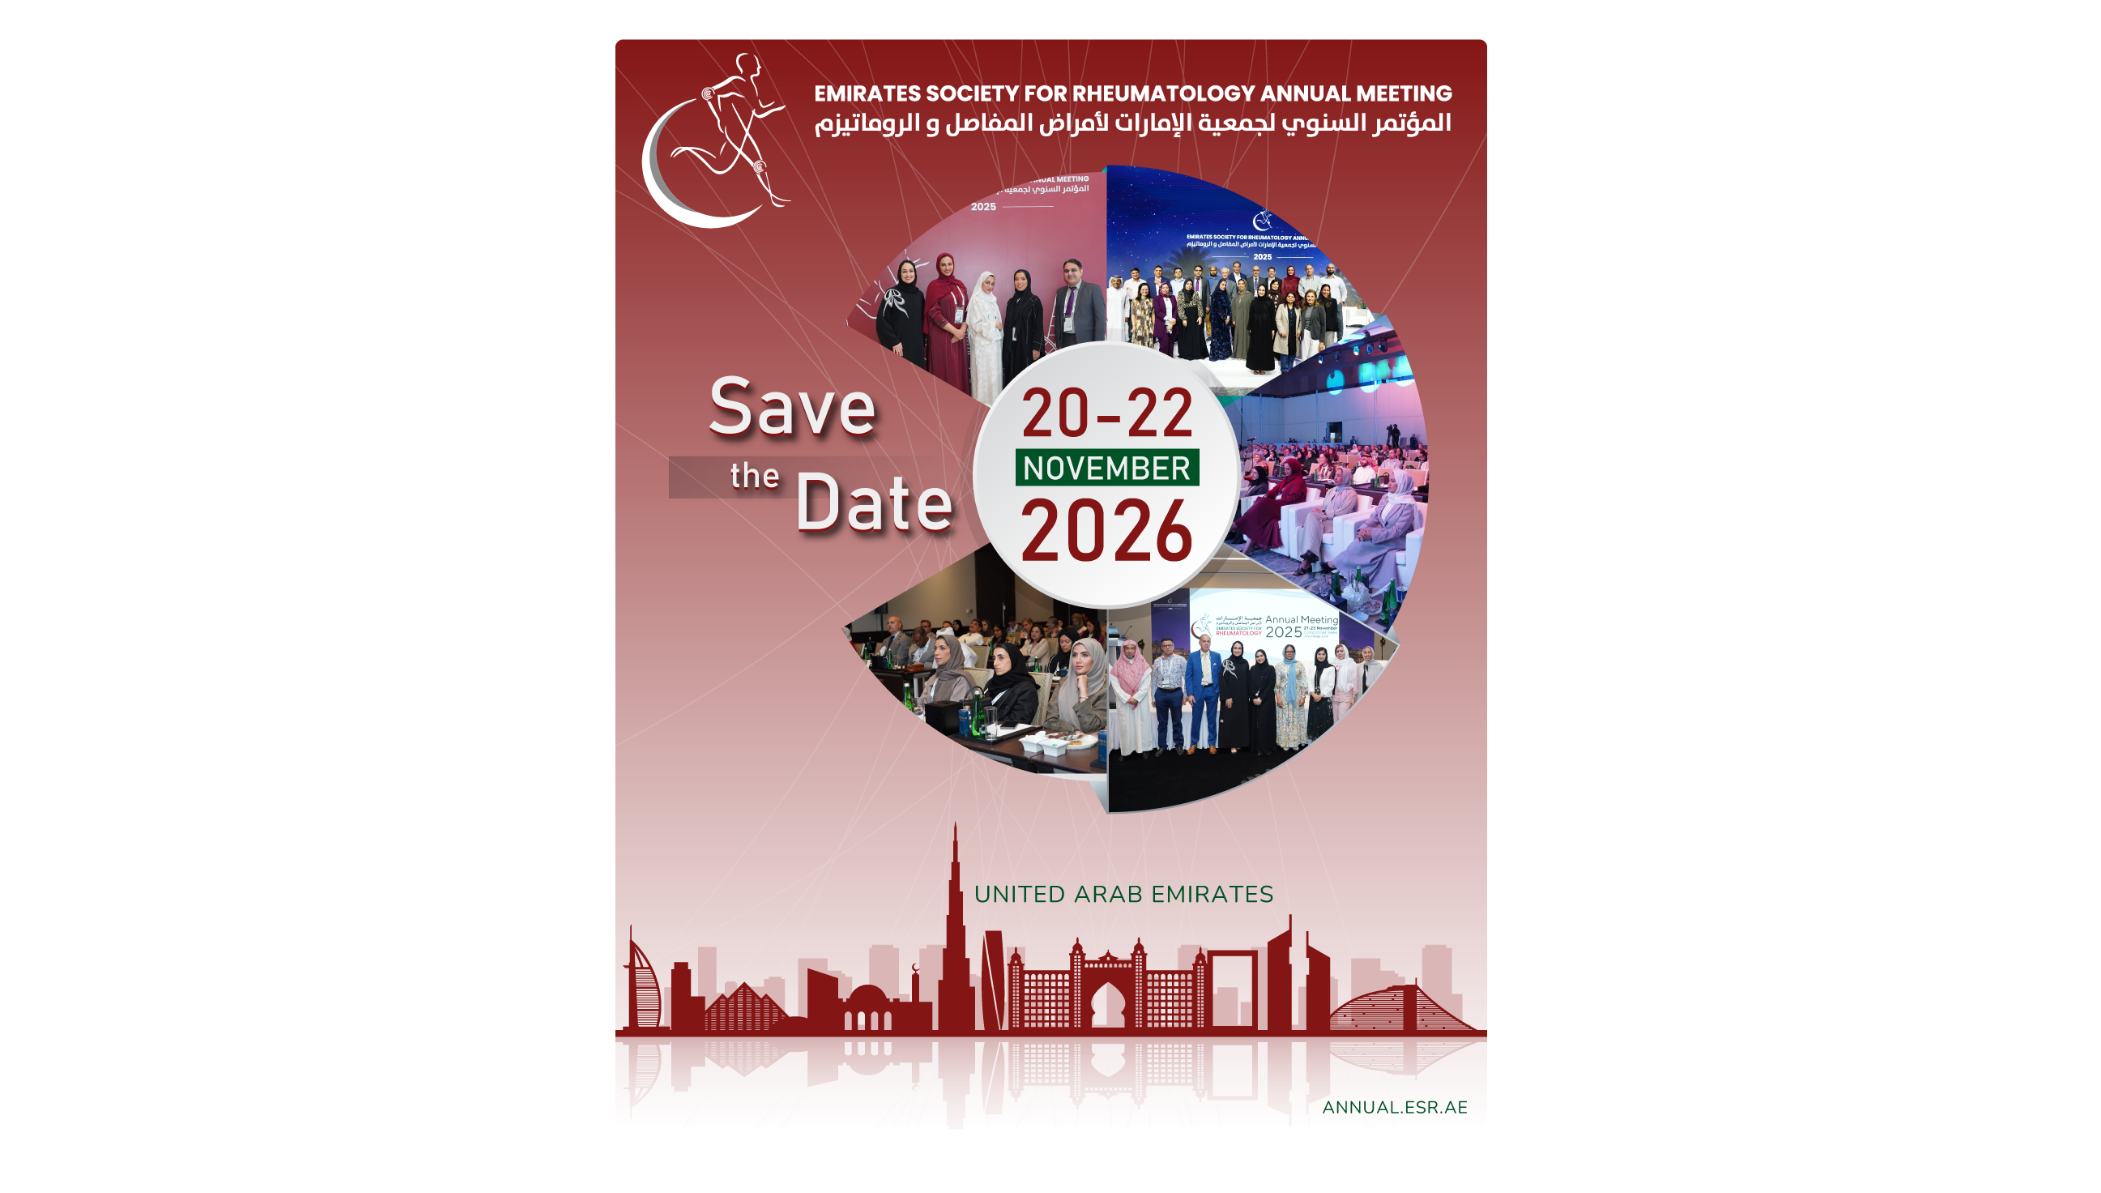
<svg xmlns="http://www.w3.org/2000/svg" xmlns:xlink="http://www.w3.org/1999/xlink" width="2101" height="1193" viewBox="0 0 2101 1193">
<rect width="100%" height="100%" fill="#ffffff"/>
<image xlink:href="image0.png" x="614" y="39" width="874" height="1091"/>
</svg>
